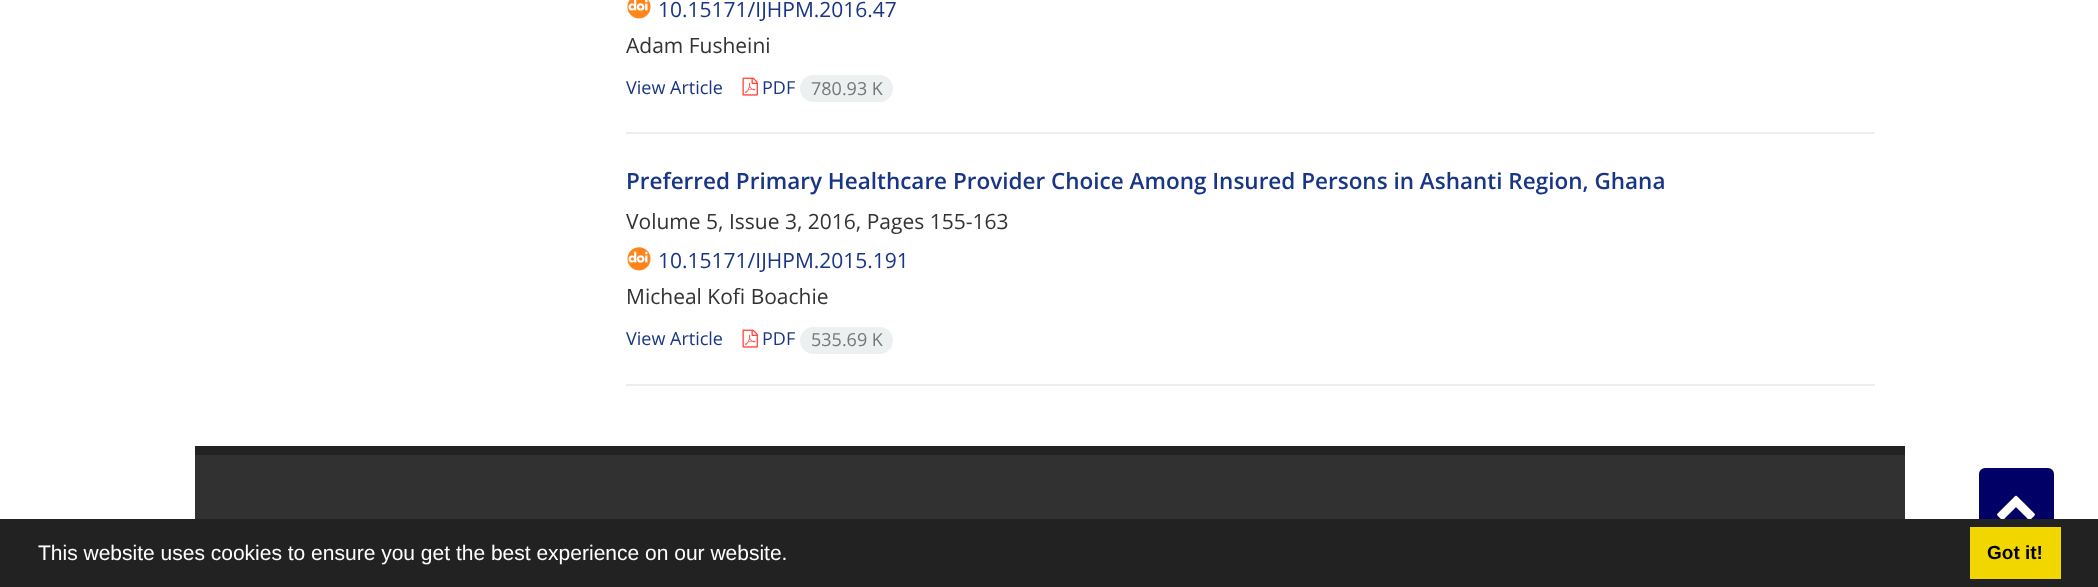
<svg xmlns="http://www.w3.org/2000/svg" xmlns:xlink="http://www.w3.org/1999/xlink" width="2098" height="587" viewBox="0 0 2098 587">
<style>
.cls-1{font:21px Open Sans;fill:#183586}
.cls-2{font:21px Open Sans;fill:#333333}
.cls-3{font:18px Open Sans;fill:#183586}
.cls-4{font:18px Open Sans;fill:#777777}
.cls-5{font:600 22.5px Open Sans;fill:#183586}
.cls-6{font:21px Liberation Sans;fill:#ffffff}
.cls-7{font:bold 19px Liberation Sans;fill:#000000}
</style>
<rect width="100%" height="100%" fill="#ffffff"/>
<image xlink:href="image0.png" x="627" y="0" width="24" height="19"/>
<image xlink:href="image1.png" x="742" y="77" width="16" height="19"/>
<rect fill="#ecf0f1" x="800" y="75" width="93" height="27" rx="13.5"/>
<rect fill="#eeeeee" x="626" y="132" width="1249" height="2"/>
<image xlink:href="image2.png" x="627" y="247" width="24" height="24"/>
<image xlink:href="image1.png" x="742" y="329" width="16" height="19"/>
<rect fill="#ecf0f1" x="800" y="327" width="93" height="27" rx="13.5"/>
<rect fill="#eeeeee" x="626" y="384" width="1249" height="2"/>
<rect fill="#313131" x="195" y="455" width="1710" height="64"/>
<rect fill="#222222" x="195" y="446" width="1710" height="9"/>
<rect fill="#000066" x="1979" y="468" width="75" height="75" rx="6"/>
<image xlink:href="image3.png" x="1997" y="495" width="38" height="24"/>
<rect fill="#222222" x="0" y="519" width="2098" height="68"/>
<rect fill="#f1d600" x="1970" y="527" width="91" height="52"/>
<text class="cls-1" x="658" y="17">10.15171/IJHPM.2016.47</text>
<text class="cls-2" x="626" y="53">Adam Fusheini</text>
<text class="cls-3" x="626" y="94">View Article</text>
<text class="cls-3" x="762" y="94">PDF</text>
<text class="cls-4" x="811" y="95">780.93 K</text>
<text class="cls-5" x="626" y="189">Preferred Primary Healthcare Provider Choice Among Insured Persons in Ashanti Region, Ghana</text>
<text class="cls-2" x="626" y="229">Volume 5, Issue 3, 2016, Pages 155-163</text>
<text class="cls-1" x="658" y="268">10.15171/IJHPM.2015.191</text>
<text class="cls-2" x="626" y="304">Micheal Kofi Boachie</text>
<text class="cls-3" x="626" y="345">View Article</text>
<text class="cls-3" x="762" y="345">PDF</text>
<text class="cls-4" x="811" y="346">535.69 K</text>
<text class="cls-6" x="38" y="560">This website uses cookies to ensure you get the best experience on our website.</text>
<text class="cls-7" x="1987" y="559">Got it!</text>
</svg>
